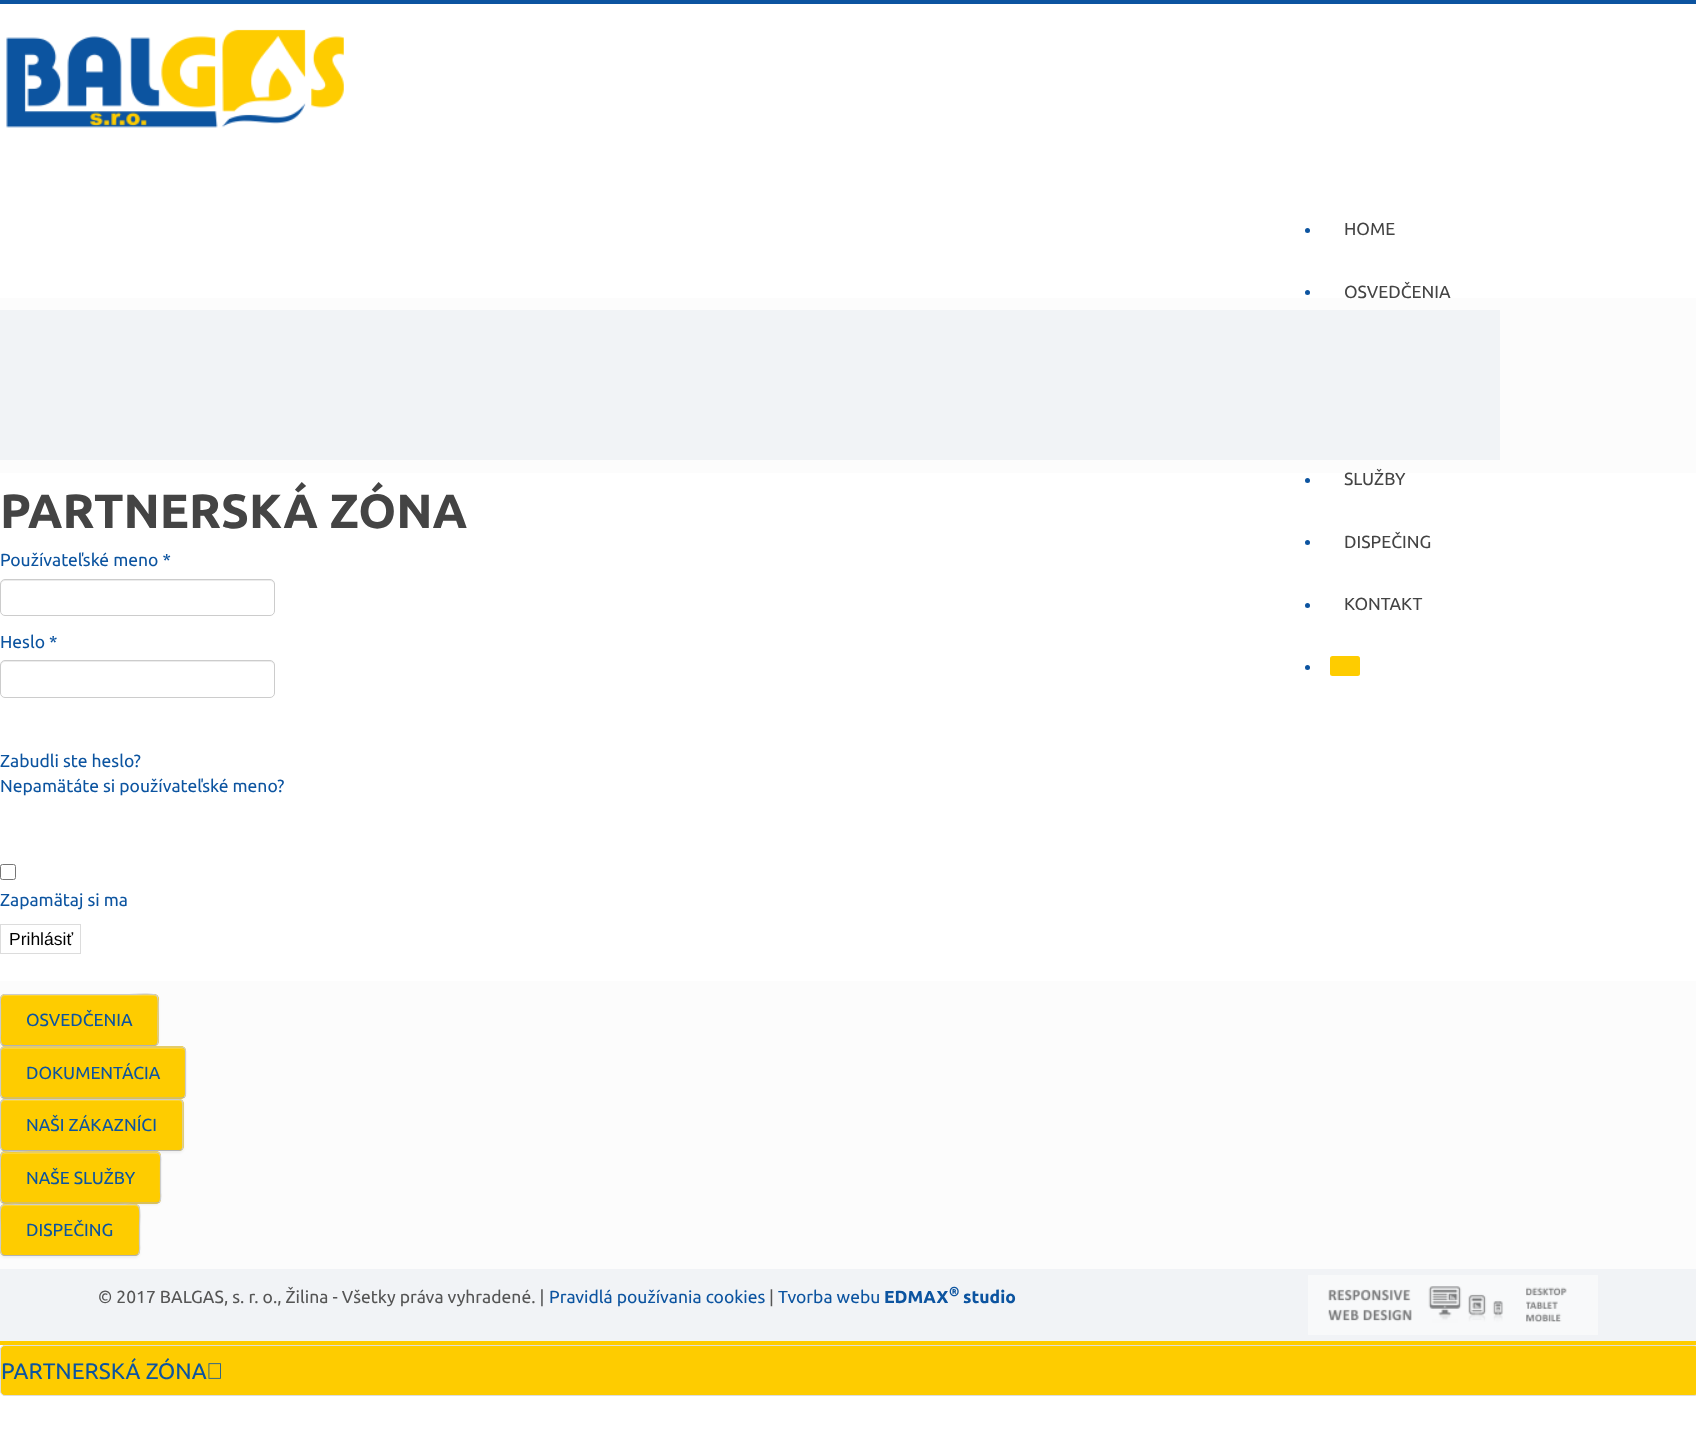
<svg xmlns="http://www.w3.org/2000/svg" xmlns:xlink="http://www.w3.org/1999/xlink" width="1696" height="1434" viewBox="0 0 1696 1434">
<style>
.cls-1{font:17.5px Ubuntu;fill:#444444}
.cls-2{font:bold 48.1px Ubuntu;fill:#444444}
.cls-3{font:17.5px Ubuntu;fill:#0c54a0}
.cls-4{font:17.5px Liberation Sans;fill:#000000}
.cls-5{font:17.5px Ubuntu;fill:#555555}
.cls-6{font:bold 17.5px Ubuntu;fill:#0c54a0}
.cls-7{font:bold 13px Ubuntu;fill:#0c54a0}
.cls-8{font:22.5px Ubuntu;fill:#0c54a0}
</style>
<rect width="100%" height="100%" fill="#ffffff"/>
<rect fill="#0c54a0" x="0" y="0" width="1696" height="4"/>
<image xlink:href="image0.png" x="6" y="29" width="338" height="99"/>
<circle fill="#0c54a0" cx="1307.5" cy="230.5" r="2.5"/>
<circle fill="#0c54a0" cx="1307.5" cy="292.5" r="2.5"/>
<circle fill="#0c54a0" cx="1307.5" cy="480.5" r="2.5"/>
<circle fill="#0c54a0" cx="1307.5" cy="542.5" r="2.5"/>
<circle fill="#0c54a0" cx="1307.5" cy="605.5" r="2.5"/>
<circle fill="#0c54a0" cx="1307.5" cy="667.5" r="2.5"/>
<rect fill="#fecc00" x="1330" y="656" width="30" height="20" rx="2.5"/>
<rect fill="#fcfcfc" x="0" y="298" width="1696" height="175"/>
<rect fill="#f1f3f6" x="0" y="310" width="1500" height="150"/>
<path fill="#ececec" d="M5 581H270C272 581 274 583 274 585C274 582 273 580 270 580H5C2 580 1 582 1 585C1 583 3 581 5 581Z"/>
<rect fill="none" stroke="#cccccc" x="0.5" y="579.5" width="274" height="36" rx="4.5"/>
<path fill="#ececec" d="M5 662H270C272 662 274 664 274 666C274 663 273 661 270 661H5C2 661 1 663 1 666C1 664 3 662 5 662Z"/>
<rect fill="none" stroke="#cccccc" x="0.5" y="660.5" width="274" height="37" rx="4.5"/>
<rect fill="none" stroke="#767676" x="0.5" y="864.5" width="15" height="15" rx="2"/>
<rect fill="none" stroke="#dcdcdc" x="0.5" y="924.5" width="80" height="29"/>
<rect fill="#fcfcfc" x="0" y="981" width="1696" height="288"/>
<rect fill="#000000" fill-opacity="0.05" filter="blur(1px)" x="0" y="995" width="159" height="53" rx="5"/>
<rect fill="#fecc00" x="0" y="994" width="159" height="52" rx="5"/>
<path fill="#fed633" d="M5 996H154C156 996 158 998 158 1000C158 998 157 996 155 995H4C2 996 1 998 1 1000C1 998 3 996 5 996Z"/>
<path fill="none" stroke="#b3b3b3" stroke-width="1.2" d="M157 1044.5C156 1045 155 1045.5 154 1045.5H5C4 1045.5 2.5 1045 2 1044.5"/>
<path fill="none" stroke="#cccccc" stroke-width="1.2" d="M2 1044.5C-.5 1042 .5 1036.5 .5 1034V1006C.5 1002.5-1 994.5 5 994.5H129C163.5 994.5 158 988 158 1020V1034C158 1036.5 159 1042 157 1044.5"/>
<rect fill="#000000" fill-opacity="0.05" filter="blur(1px)" x="0" y="1048" width="186" height="52" rx="5"/>
<rect fill="#fecc00" x="0" y="1046" width="186" height="53" rx="5"/>
<path fill="#fed633" d="M5 1049H181C183 1049 185 1050 185 1052C185 1050 183 1048 181 1048H5C3 1048 1 1050 1 1052C1 1050 3 1049 5 1049Z"/>
<path fill="none" stroke="#b3b3b3" stroke-width="1.2" d="M184.5 1097C183.5 1097.5 182.5 1098 181 1098H5C4 1098 2.5 1097.5 2 1097"/>
<path fill="none" stroke="#cccccc" stroke-width="1.2" d="M2 1097C1 1096 .5 1095 .5 1094V1051C.5 1050 1 1049 2 1048C2.5 1047.5 4 1047 5 1047H181C182.5 1047 183.5 1047.5 184.5 1048C185 1049 185.5 1050 185.5 1051V1094C185.5 1095 185 1096 184.5 1097"/>
<rect fill="#000000" fill-opacity="0.05" filter="blur(1px)" x="0" y="1100" width="184" height="53" rx="5"/>
<rect fill="#fecc00" x="0" y="1099" width="184" height="52" rx="5"/>
<path fill="#fed633" d="M5 1101H179C181 1101 182 1103 182 1105V1149C183 1148 183 1147 183 1146V1104C183 1102 181 1100 179 1100H5C3 1100 1 1102 1 1104V1105C1 1103 3 1101 5 1101Z"/>
<path fill="none" stroke="#b3b3b3" stroke-width="1.2" d="M182 1149.5C181 1150 180 1150.5 179 1150.5H5C4 1150.5 2.5 1150 2 1149.5"/>
<path fill="none" stroke="#cccccc" stroke-width="1.2" d="M2 1149.5C1 1148.5 .5 1147.5 .5 1146V1104C.5 1102.5 1 1101.5 2 1100.5C2.5 1100 4 1099.5 5 1099.5H179C180 1099.5 181 1100 182 1100.5C182.5 1101.5 183 1102.5 183 1104V1146C183 1147.5 182.5 1148.5 182 1149.5"/>
<rect fill="#000000" fill-opacity="0.05" filter="blur(1px)" x="0" y="1153" width="161" height="52" rx="5"/>
<rect fill="#fecc00" x="0" y="1151" width="161" height="53" rx="5"/>
<path fill="#fed633" d="M5 1154H156C158 1154 160 1155 160 1158C160 1156 159 1154 157 1153H4C2 1154 1 1156 1 1158C1 1155 3 1154 5 1154Z"/>
<path fill="none" stroke="#b3b3b3" stroke-width="1.2" d="M159.5 1202C158.5 1202.5 157.5 1203 156 1203H5C4 1203 2.5 1202.5 2 1202"/>
<path fill="none" stroke="#cccccc" stroke-width="1.2" d="M2 1202C-.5 1199.5 .5 1194 .5 1191.5V1177.5C.5 1145.5-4.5 1152 30 1152H156C162 1152 160.5 1160 160.5 1163.5V1191.5C160.5 1194 161.5 1199.5 159.5 1202"/>
<rect fill="#000000" fill-opacity="0.05" filter="blur(1px)" x="0" y="1205" width="140" height="53" rx="5"/>
<rect fill="#fecc00" x="0" y="1204" width="140" height="52" rx="5"/>
<path fill="#fed633" d="M5 1206H135C137 1206 139 1208 139 1210V1209C139 1207 137 1205 135 1205H5C3 1205 1 1207 1 1209V1210C1 1208 3 1206 5 1206Z"/>
<path fill="none" stroke="#b3b3b3" stroke-width="1.2" d="M138 1254.5L135 1255.5H4.5L2 1254.5"/>
<path fill="none" stroke="#cccccc" stroke-width="1.2" d="M2 1254.5C-.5 1252 .5 1246.5 .5 1244V1230C.5 1199.5-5 1204.5 26.5 1204.5H113.5C145 1204.5 139.5 1199.5 139.5 1230V1244C139.5 1246.5 140.5 1252 138 1254.5"/>
<rect fill="#f1f3f6" x="0" y="1269" width="1696" height="72"/>
<rect fill="#fecc00" x="0" y="1341" width="1696" height="4"/>
<image xlink:href="image1.png" x="1308" y="1275" width="290" height="60"/>
<rect fill="none" stroke="#cccccc" x="0.5" y="1345.5" width="274" height="37" rx="4.5"/>
<rect fill="#fecc00" stroke="#dddddd" x="0.5" y="1345.5" width="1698" height="50" rx="4.5"/>
<image xlink:href="image2.png" x="208" y="1363" width="13" height="16"/>
<text class="cls-1" x="1344" y="235">HOME</text>
<text class="cls-1" x="1344" y="298">OSVEDČENIA</text>
<text class="cls-1" x="1344" y="485">SLUŽBY</text>
<text class="cls-1" x="1344" y="548">DISPEČING</text>
<text class="cls-1" x="1344" y="610">KONTAKT</text>
<text class="cls-2" x="0" y="528">PARTNERSKÁ ZÓNA</text>
<text class="cls-3" x="0" y="566">Používateľské meno *</text>
<text class="cls-3" x="0" y="648">Heslo *</text>
<text class="cls-3"><tspan x="0" y="767">Zabudli ste heslo?</tspan><tspan x="0" y="792">Nepamätáte si používateľské meno?</tspan></text>
<text class="cls-3" x="0" y="906">Zapamätaj si ma</text>
<text class="cls-4" x="9" y="945">Prihlásiť</text>
<text class="cls-3" x="26" y="1026">OSVEDČENIA</text>
<text class="cls-3" x="26" y="1079">DOKUMENTÁCIA</text>
<text class="cls-3" x="26" y="1131">NAŠI ZÁKAZNÍCI</text>
<text class="cls-3" x="26" y="1184">NAŠE SLUŽBY</text>
<text class="cls-3" x="26" y="1236">DISPEČING</text>
<text class="cls-5" x="98" y="1303">© 2017 BALGAS, s. r. o., Žilina - Všetky práva vyhradené. |</text>
<text class="cls-3" x="549" y="1303">Pravidlá používania cookies</text>
<text class="cls-5" x="769" y="1303">|</text>
<text class="cls-3" x="778" y="1303">Tvorba webu</text>
<text class="cls-6" x="884" y="1303">EDMAX</text>
<text class="cls-7" x="949" y="1296">®</text>
<text class="cls-6" x="963" y="1303">studio</text>
<text class="cls-8" x="1" y="1379">PARTNERSKÁ ZÓNA</text>
</svg>
